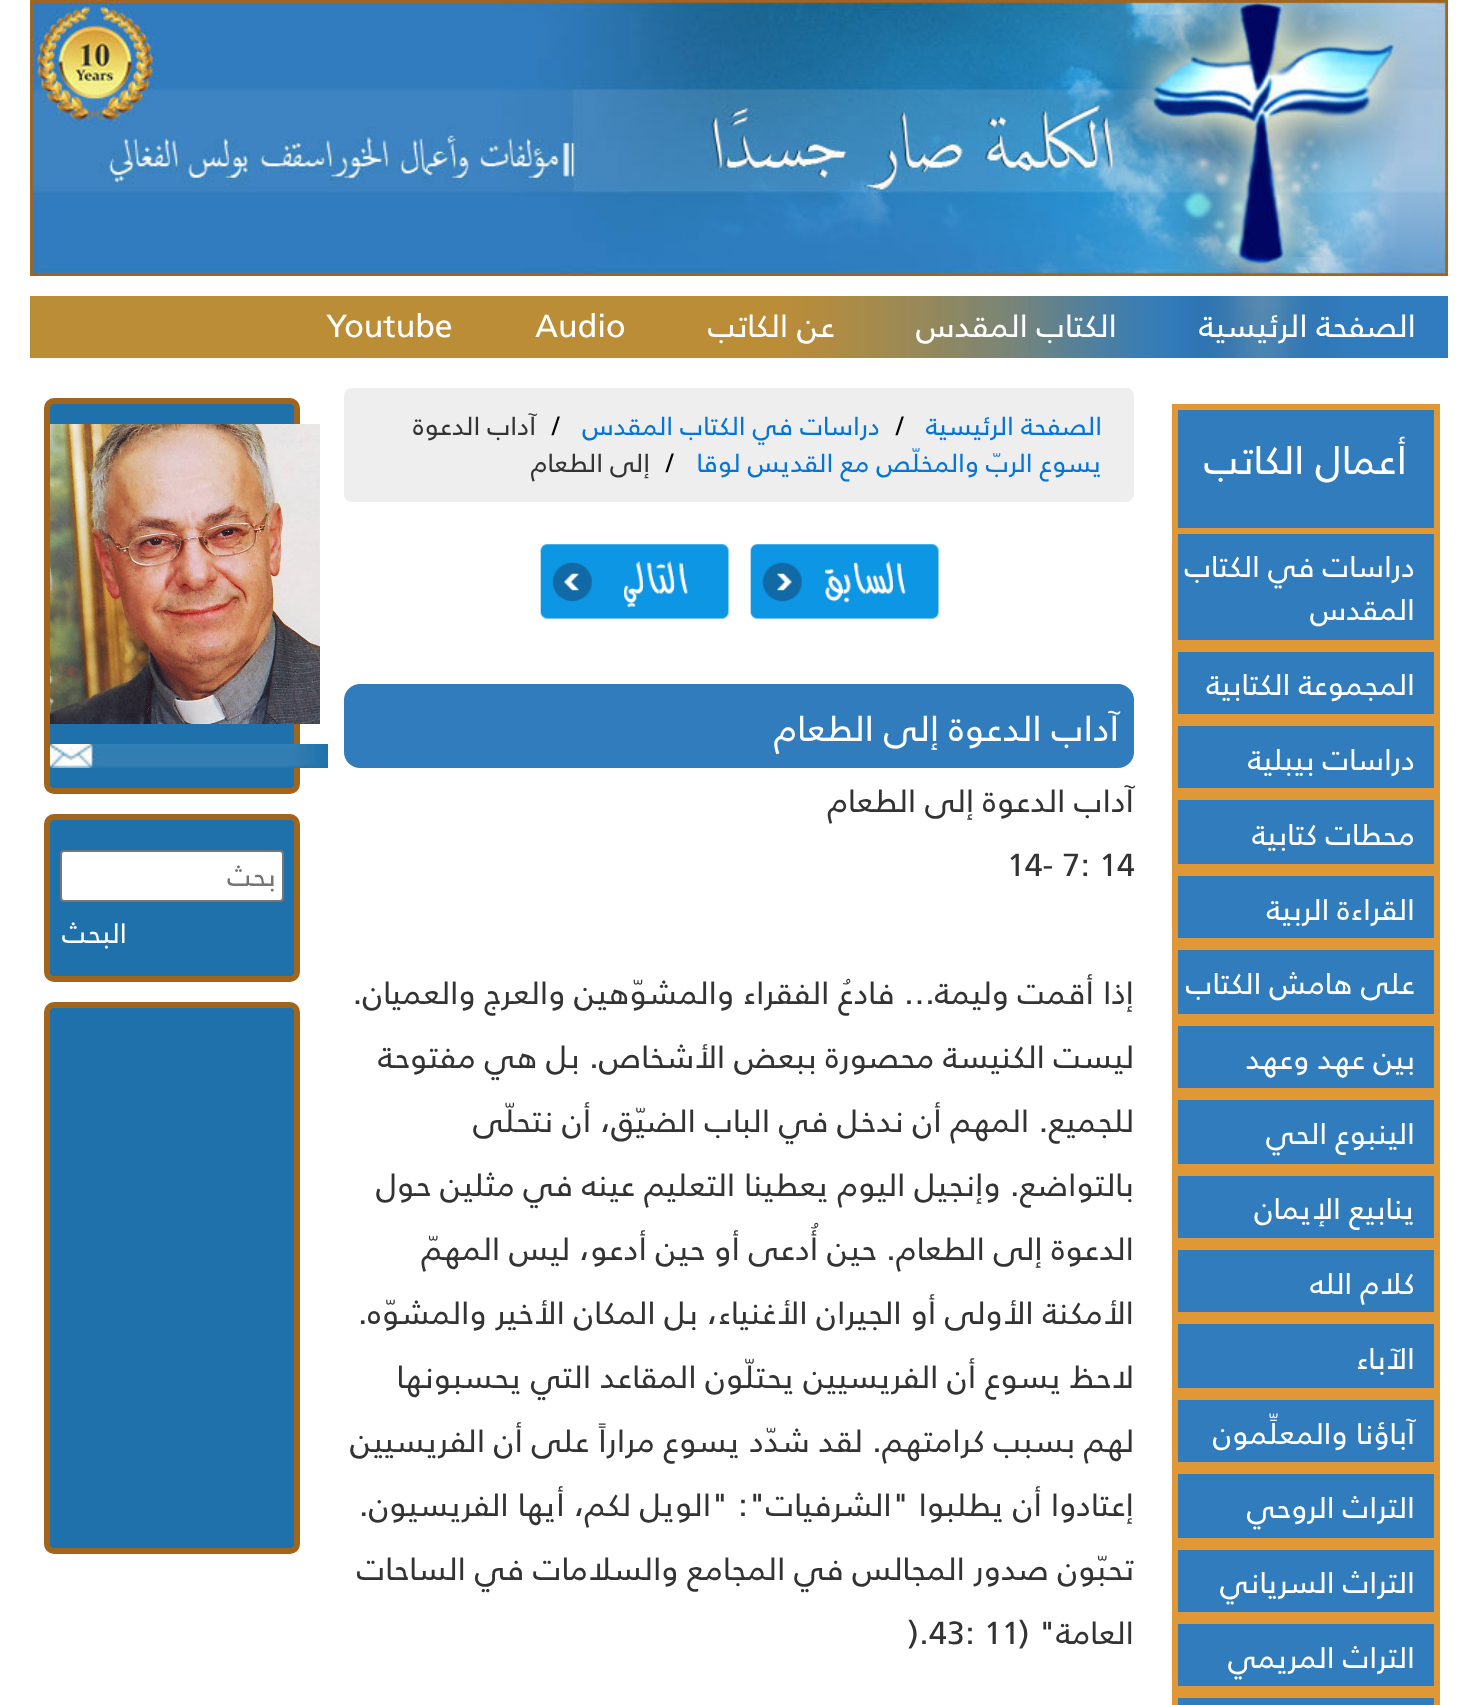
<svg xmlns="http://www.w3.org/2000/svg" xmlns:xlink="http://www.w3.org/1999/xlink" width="1478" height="1705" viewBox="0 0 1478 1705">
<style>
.cls-1{font:32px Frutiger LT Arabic;direction:rtl;fill:#ffffff}
.cls-2{font:32px Frutiger LT Arabic;fill:#ffffff}
.cls-3{font:40px Frutiger LT Arabic;direction:rtl;fill:#ffffff}
.cls-4{font:30px Frutiger LT Arabic;direction:rtl;fill:#ffffff}
.cls-5{font:26px Frutiger LT Arabic;fill:#000000}
.cls-6{font:26px Frutiger LT Arabic;direction:rtl;fill:#0275d8}
.cls-7{font:26px Frutiger LT Arabic;direction:rtl;fill:#333333}
.cls-8{font:36px Frutiger LT Arabic;direction:rtl;fill:#ffffff}
.cls-9{font:32px Frutiger LT Arabic;direction:rtl;fill:#333333}
.cls-10{font:32px Frutiger LT Arabic;fill:#333333}
.cls-11{font:28px Frutiger LT Arabic;direction:rtl;fill:#757575}
.cls-12{font:28px Frutiger LT Arabic;direction:rtl;fill:#ffffff}
</style>
<rect width="100%" height="100%" fill="#ffffff"/>
<image xlink:href="image0.png" x="30" y="0" width="1418" height="276"/>
<image xlink:href="image1.png" x="30" y="296" width="1418" height="62"/>
<rect fill="#317cbc" stroke="#e09836" stroke-width="6" x="1175" y="407" width="262" height="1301"/>
<rect fill="#e09836" x="1178" y="528" width="256" height="6"/>
<rect fill="#e09836" x="1178" y="640" width="256" height="12"/>
<rect fill="#e09836" x="1178" y="714" width="256" height="12"/>
<rect fill="#e09836" x="1178" y="788" width="256" height="12"/>
<rect fill="#e09836" x="1178" y="864" width="256" height="12"/>
<rect fill="#e09836" x="1178" y="938" width="256" height="12"/>
<rect fill="#e09836" x="1178" y="1014" width="256" height="12"/>
<rect fill="#e09836" x="1178" y="1088" width="256" height="12"/>
<rect fill="#e09836" x="1178" y="1164" width="256" height="12"/>
<rect fill="#e09836" x="1178" y="1238" width="256" height="12"/>
<rect fill="#e09836" x="1178" y="1312" width="256" height="12"/>
<rect fill="#e09836" x="1178" y="1388" width="256" height="12"/>
<rect fill="#e09836" x="1178" y="1462" width="256" height="12"/>
<rect fill="#e09836" x="1178" y="1538" width="256" height="12"/>
<rect fill="#e09836" x="1178" y="1612" width="256" height="12"/>
<rect fill="#e09836" x="1178" y="1686" width="256" height="12"/>
<rect fill="#eeeeee" x="344" y="388" width="790" height="114" rx="8"/>
<image xlink:href="image2.png" x="750" y="544" width="189" height="75"/>
<image xlink:href="image3.png" x="540" y="544" width="189" height="75"/>
<rect fill="#317cbc" x="344" y="684" width="790" height="84" rx="16"/>
<rect fill="#1f71ac" stroke="#a3651c" stroke-width="6" x="47" y="401" width="250" height="390" rx="7"/>
<image xlink:href="image4.png" x="50" y="424" width="270" height="300"/>
<image xlink:href="image5.png" x="50" y="744" width="278" height="24"/>
<rect fill="#1f71ac" stroke="#a3651c" stroke-width="6" x="47" y="817" width="250" height="162" rx="7"/>
<rect fill="#ffffff" stroke="#767676" stroke-width="2" x="61" y="851" width="222" height="50" rx="3"/>
<rect fill="#1f71ac" stroke="#a3651c" stroke-width="6" x="47" y="1005" width="250" height="546" rx="7"/>
<text class="cls-1" x="1416" y="337">الصفحة الرئيسية</text>
<text class="cls-1" x="1117" y="337">الكتاب المقدس</text>
<text class="cls-1" x="835" y="337">عن الكاتب</text>
<text class="cls-2" x="535" y="337">Audio</text>
<text class="cls-2" x="326" y="337">Youtube</text>
<text class="cls-3" x="1407" y="474">أعمال الكاتب</text>
<text class="cls-4"><tspan x="1415" y="577">دراسات في الكتاب</tspan><tspan x="1415" y="620">المقدس</tspan></text>
<text class="cls-4" x="1415" y="695">المجموعة الكتابية</text>
<text class="cls-4" x="1415" y="770">دراسات بيبلية</text>
<text class="cls-4" x="1415" y="845">محطات كتابية</text>
<text class="cls-4" x="1415" y="920">القراءة الربية</text>
<text class="cls-4" x="1415" y="994">على هامش الكتاب</text>
<text class="cls-4" x="1415" y="1069">بين عهد وعهد</text>
<text class="cls-4" x="1415" y="1144">الينبوع الحي</text>
<text class="cls-4" x="1415" y="1219">ينابيع الإيمان</text>
<text class="cls-4" x="1415" y="1294">كلام الله</text>
<text class="cls-4" x="1415" y="1369">الآباء</text>
<text class="cls-4" x="1415" y="1444">آباؤنا والمعلِّمون</text>
<text class="cls-4" x="1415" y="1518">التراث الروحي</text>
<text class="cls-4" x="1415" y="1593">التراث السرياني</text>
<text class="cls-4" x="1415" y="1668">التراث المريمي</text>
<text class="cls-5" x="552" y="435">/</text>
<text class="cls-6" x="1102" y="472">يسوع الربّ والمخلّص مع القديس لوقا</text>
<text class="cls-7" x="536" y="435">آداب الدعوة</text>
<text class="cls-5" x="666" y="472">/</text>
<text class="cls-7" x="650" y="472">إلى الطعام</text>
<text class="cls-6" x="1102" y="435">الصفحة الرئيسية</text>
<text class="cls-5" x="896" y="435">/</text>
<text class="cls-6" x="880" y="435">دراسات في الكتاب المقدس</text>
<text class="cls-8" x="1119" y="741">آداب الدعوة إلى الطعام</text>
<text class="cls-9" x="1134" y="812">آداب الدعوة إلى الطعام</text>
<text class="cls-10" x="1007" y="876">14- 7: 14</text>
<text class="cls-9" x="1134" y="1004">إذا أقمت وليمة... فادعُ الفقراء والمشوّهين والعرج والعميان.</text>
<text class="cls-9" x="1134" y="1068">ليست الكنيسة محصورة ببعض الأشخاص. بل هي مفتوحة</text>
<text class="cls-9" x="1134" y="1132">للجميع. المهم أن ندخل في الباب الضيّق، أن نتحلّى</text>
<text class="cls-9" x="1134" y="1196">بالتواضع. وإنجيل اليوم يعطينا التعليم عينه في مثلين حول</text>
<text class="cls-9" x="1134" y="1260">الدعوة إلى الطعام. حين أُدعى أو حين أدعو، ليس المهمّ</text>
<text class="cls-9" x="1134" y="1324">الأمكنة الأولى أو الجيران الأغنياء، بل المكان الأخير والمشوّه.</text>
<text class="cls-9" x="1134" y="1388">لاحظ يسوع أن الفريسيين يحتلّون المقاعد التي يحسبونها</text>
<text class="cls-9" x="1134" y="1452">لهم بسبب كرامتهم. لقد شدّد يسوع مراراً على أن الفريسيين</text>
<text class="cls-9" x="1134" y="1516">إعتادوا أن يطلبوا "الشرفيات": "الويل لكم، أيها الفريسيون.</text>
<text class="cls-9" x="1134" y="1580">تحبّون صدور المجالس في المجامع والسلامات في الساحات</text>
<text class="cls-9" x="1134" y="1644">العامة" (</text>
<text class="cls-10" x="908" y="1644">).43: 11</text>
<text class="cls-11" x="276" y="886">بحث</text>
<text class="cls-12" x="127" y="943">البحث</text>
</svg>
